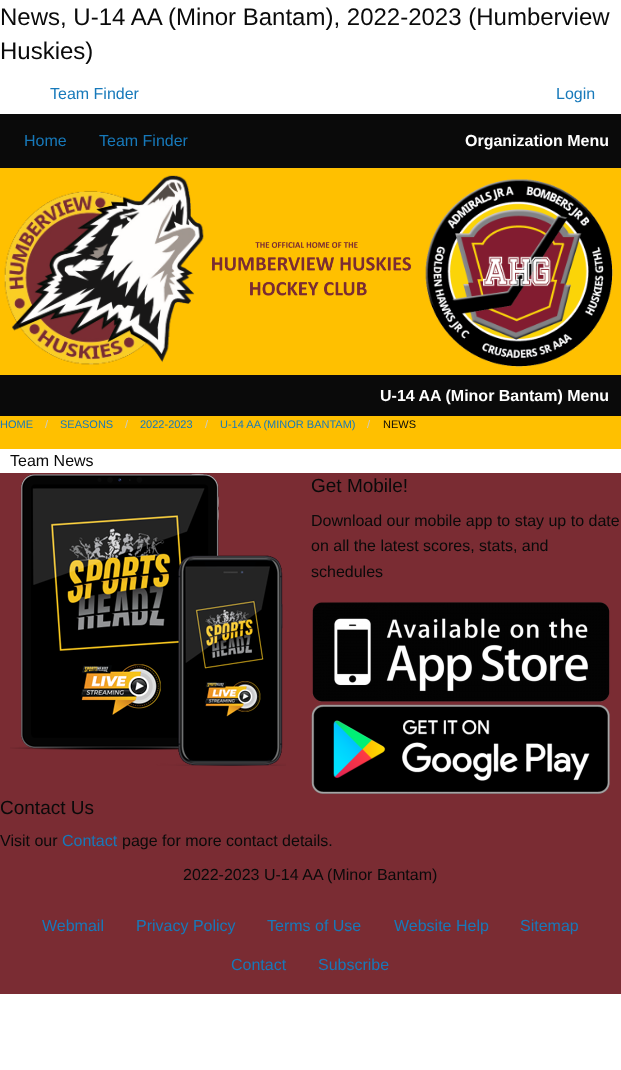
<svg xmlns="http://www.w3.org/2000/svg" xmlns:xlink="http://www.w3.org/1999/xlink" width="621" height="1070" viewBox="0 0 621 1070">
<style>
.cls-1{font:24px Liberation Sans;fill:#0a0a0a}
.cls-2{font:16px Liberation Sans;fill:#1779ba}
.cls-3{font:bold 16px Liberation Sans;fill:#fefefe}
.cls-4{font:11px Liberation Sans;fill:#1779ba}
.cls-5{font:11px Liberation Sans;fill:#cacaca}
.cls-6{font:11px Liberation Sans;fill:#0a0a0a}
.cls-7{font:16px Liberation Sans;fill:#0a0a0a}
.cls-8{font:19px Liberation Sans;fill:#0a0a0a}
</style>
<rect width="100%" height="100%" fill="#ffffff"/>
<rect fill="#ffc000" x="0" y="168" width="621" height="281"/>
<rect fill="#0a0a0a" x="0" y="114" width="621" height="54"/>
<image xlink:href="image0.png" x="4" y="175" width="200" height="190"/>
<image xlink:href="image1.png" x="212" y="242" width="200" height="54"/>
<image xlink:href="image2.png" x="425" y="179" width="188" height="188"/>
<rect fill="#0a0a0a" x="0" y="375" width="621" height="41"/>
<rect fill="#7a2c33" x="0" y="473" width="621" height="521"/>
<image xlink:href="image3.png" x="10" y="473" width="276" height="293"/>
<image xlink:href="image4.png" x="312" y="602" width="298" height="100"/>
<image xlink:href="image5.png" x="311" y="704" width="299" height="90"/>
<text class="cls-1"><tspan x="0" y="25">News, U-14 AA (Minor Bantam), 2022-2023 (Humberview</tspan><tspan x="0" y="59">Huskies)</tspan></text>
<text class="cls-2" x="50" y="99">Team Finder</text>
<text class="cls-2" x="556" y="99">Login</text>
<text class="cls-2" x="24" y="146">Home</text>
<text class="cls-2" x="99" y="146">Team Finder</text>
<text class="cls-3" x="465" y="146">Organization Menu</text>
<text class="cls-3" x="380" y="401">U-14 AA (Minor Bantam) Menu</text>
<text class="cls-4" x="0" y="428">HOME</text>
<text class="cls-5" x="45" y="428">/</text>
<text class="cls-4" x="60" y="428">SEASONS</text>
<text class="cls-5" x="125" y="428">/</text>
<text class="cls-4" x="140" y="428">2022-2023</text>
<text class="cls-5" x="205" y="428">/</text>
<text class="cls-4" x="220" y="428">U-14 AA (MINOR BANTAM)</text>
<text class="cls-5" x="367" y="428">/</text>
<text class="cls-6" x="383" y="428">NEWS</text>
<text class="cls-7" x="10" y="466">Team News</text>
<text class="cls-8" x="311" y="492">Get Mobile!</text>
<text class="cls-7"><tspan x="311" y="526">Download our mobile app to stay up to date</tspan><tspan x="311" y="551">on all the latest scores, stats, and</tspan><tspan x="311" y="577">schedules</tspan></text>
<text class="cls-8" x="0" y="814">Contact Us</text>
<text class="cls-7" x="0" y="846">Visit our</text>
<text class="cls-2" x="62" y="846">Contact</text>
<text class="cls-7" x="122" y="846">page for more contact details.</text>
<text class="cls-7" x="183" y="880">2022-2023 U-14 AA (Minor Bantam)</text>
<text class="cls-2" x="42" y="931">Webmail</text>
<text class="cls-2" x="136" y="931">Privacy Policy</text>
<text class="cls-2" x="267" y="931">Terms of Use</text>
<text class="cls-2" x="394" y="931">Website Help</text>
<text class="cls-2" x="520" y="931">Sitemap</text>
<text class="cls-2" x="231" y="970">Contact</text>
<text class="cls-2" x="318" y="970">Subscribe</text>
</svg>
